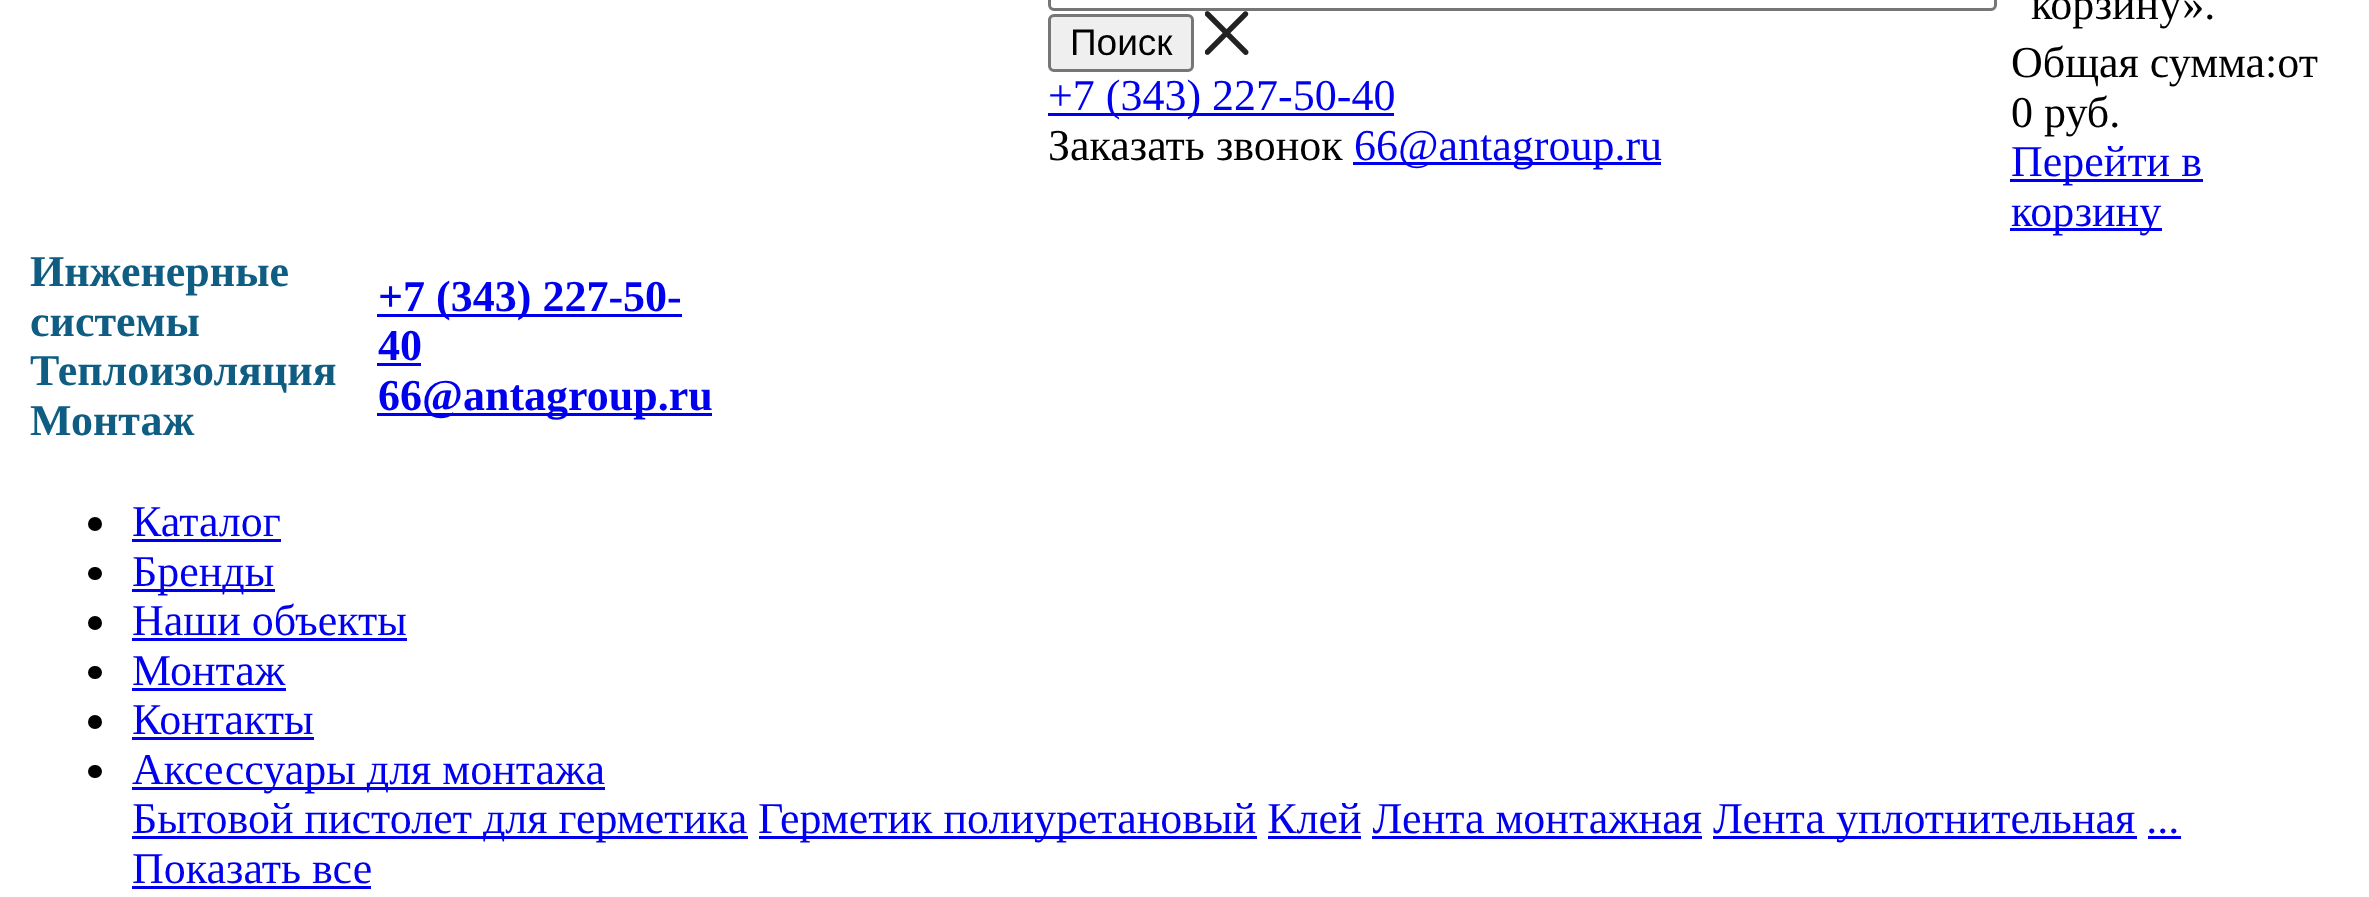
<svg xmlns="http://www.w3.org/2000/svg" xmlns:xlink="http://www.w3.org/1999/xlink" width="2369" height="897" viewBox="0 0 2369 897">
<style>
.cls-1{font:37px Liberation Sans;fill:#000000}
.cls-2{font:44px Liberation Serif;fill:#0000ee}
.cls-3{font:44px Liberation Serif;fill:#000000}
.cls-4{font:bold 44px Liberation Serif;fill:#0f5d82}
.cls-5{font:bold 44px Liberation Serif;fill:#0000ee}
</style>
<rect width="100%" height="100%" fill="#ffffff"/>
<rect fill="none" stroke="#767676" stroke-width="3" x="1049.5" y="-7.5" width="946" height="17" rx="4.5"/>
<rect fill="#efefef" stroke="#767676" stroke-width="3" x="1049.5" y="15.5" width="143" height="55" rx="4.5"/>
<image xlink:href="image0.png" x="1205" y="11" width="44" height="44"/>
<rect fill="#0000ee" x="1048" y="113" width="346" height="3"/>
<rect fill="#0000ee" x="1353" y="162" width="308" height="3"/>
<rect fill="#0000ee" x="2010" y="179" width="193" height="3"/>
<rect fill="#0000ee" x="2010" y="228" width="152" height="3"/>
<rect fill="#0000ee" x="377" y="314" width="305" height="3"/>
<rect fill="#0000ee" x="377" y="363" width="44" height="3"/>
<rect fill="#0000ee" x="377" y="413" width="335" height="3"/>
<circle fill="#000000" cx="95" cy="524" r="7"/>
<rect fill="#0000ee" x="132" y="539" width="149" height="3"/>
<rect fill="#000000" x="88" y="567" width="14" height="13" rx="6.5"/>
<rect fill="#0000ee" x="132" y="589" width="143" height="3"/>
<circle fill="#000000" cx="95" cy="623" r="7"/>
<rect fill="#0000ee" x="132" y="638" width="275" height="3"/>
<rect fill="#000000" x="88" y="666" width="14" height="13" rx="6.5"/>
<rect fill="#0000ee" x="132" y="688" width="154" height="3"/>
<circle fill="#000000" cx="95" cy="722" r="7"/>
<rect fill="#0000ee" x="132" y="737" width="182" height="3"/>
<rect fill="#000000" x="88" y="765" width="14" height="13" rx="6.5"/>
<rect fill="#0000ee" x="132" y="787" width="473" height="3"/>
<rect fill="#0000ee" x="132" y="836" width="616" height="3"/>
<rect fill="#0000ee" x="759" y="836" width="498" height="3"/>
<rect fill="#0000ee" x="1713" y="836" width="424" height="3"/>
<rect fill="#0000ee" x="1268" y="836" width="93" height="3"/>
<rect fill="#0000ee" x="1372" y="836" width="330" height="3"/>
<rect fill="#0000ee" x="2148" y="836" width="33" height="3"/>
<rect fill="#0000ee" x="132" y="886" width="239" height="3"/>
<text class="cls-1" x="1070" y="55">Поиск</text>
<text class="cls-2" x="1048" y="110">+7 (343) 227-50-40</text>
<text class="cls-3" x="1048" y="160">Заказать звонок</text>
<text class="cls-2" x="1354" y="160">66@antagroup.ru</text>
<text class="cls-3" x="2031" y="19">корзину».</text>
<text class="cls-3"><tspan x="2011" y="77">Общая сумма:от</tspan><tspan x="2011" y="127">0 руб.</tspan></text>
<text class="cls-2"><tspan x="2011" y="176">Перейти в</tspan><tspan x="2011" y="226">корзину</tspan></text>
<text class="cls-4"><tspan x="30" y="286">Инженерные</tspan><tspan x="30" y="336">системы</tspan><tspan x="30" y="385">Теплоизоляция</tspan><tspan x="30" y="435">Монтаж</tspan></text>
<text class="cls-5"><tspan x="378" y="311">+7 (343) 227-50-</tspan><tspan x="378" y="360">40</tspan><tspan x="378" y="410">66@antagroup.ru</tspan></text>
<text class="cls-2"><tspan x="132" y="536">Каталог</tspan><tspan x="132" y="586">Бренды</tspan><tspan x="132" y="635">Наши объекты</tspan><tspan x="132" y="685">Монтаж</tspan><tspan x="132" y="734">Контакты</tspan><tspan x="132" y="784">Аксессуары для монтажа</tspan><tspan x="132" y="833">Бытовой пистолет для герметика</tspan></text>
<text class="cls-2" x="758" y="833">Герметик полиуретановый Клей Лента монтажная</text>
<text class="cls-2" x="1713" y="833">Лента уплотнительная ...</text>
<text class="cls-2" x="132" y="883">Показать все</text>
</svg>
